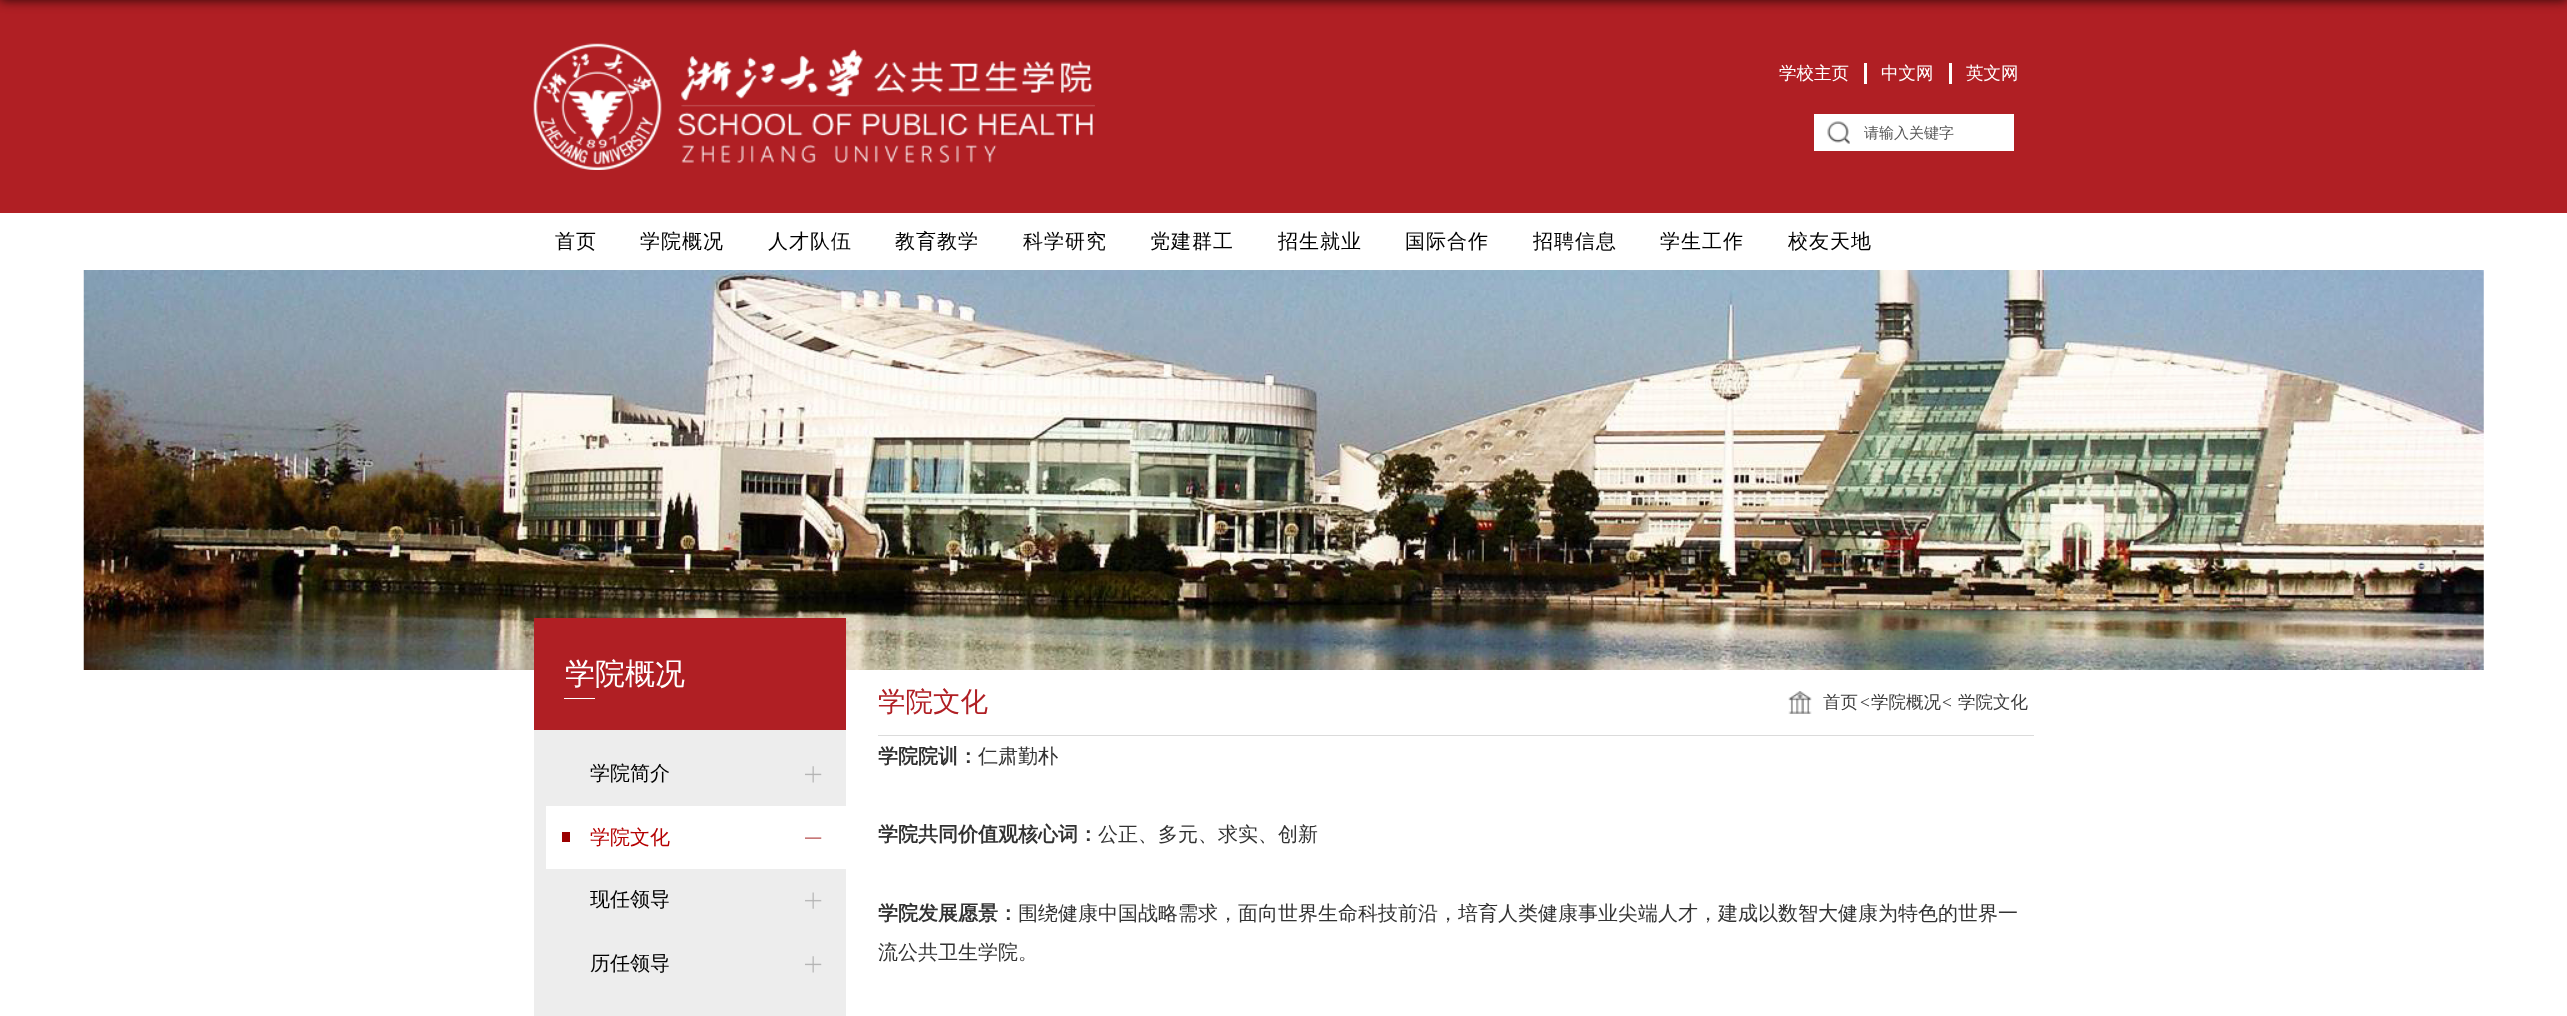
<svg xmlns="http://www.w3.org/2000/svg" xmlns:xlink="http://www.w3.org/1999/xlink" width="2567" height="1016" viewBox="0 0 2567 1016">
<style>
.cls-1{font:500 17.5px WenQuanYi Zen Hei;fill:#ffffff}
.cls-2{font:500 15px WenQuanYi Zen Hei;fill:#555555}
.cls-3{font:500 20px WenQuanYi Zen Hei;letter-spacing:1px;fill:#000000}
.cls-4{font:500 30px WenQuanYi Zen Hei;fill:#ffffff}
.cls-5{font:500 20px WenQuanYi Zen Hei;fill:#000000}
.cls-6{font:500 20px WenQuanYi Zen Hei;fill:#b50000}
.cls-7{font:500 27.5px WenQuanYi Zen Hei;fill:#b01f24}
.cls-8{font:500 17.5px WenQuanYi Zen Hei;fill:#3b3b3b}
.cls-9{font:17.5px Liberation Serif;fill:#333333}
.cls-10{font:bold 20px WenQuanYi Zen Hei;fill:#333333}
.cls-11{font:500 20px WenQuanYi Zen Hei;fill:#333333}
</style>
<rect width="100%" height="100%" fill="#ffffff"/>
<rect fill="#b01f24" x="0" y="0" width="2567" height="213"/>
<rect fill="#000000" fill-opacity="0.8" filter="blur(6px)" x="0" y="-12" width="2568" height="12"/>
<image xlink:href="image0.png" x="533" y="43" width="562" height="127"/>
<rect fill="#ffffff" x="1864" y="63" width="3" height="21"/>
<rect fill="#ffffff" x="1949" y="63" width="3" height="21"/>
<rect fill="#ffffff" x="1814" y="114" width="200" height="37"/>
<image xlink:href="image1.png" x="1827" y="121" width="23" height="23"/>
<image xlink:href="image2.png" x="83" y="270" width="2401" height="400"/>
<rect fill="#ededed" x="534" y="730" width="312" height="286"/>
<rect fill="#b01f24" x="534" y="618" width="312" height="112"/>
<rect fill="#ffffff" x="564" y="698" width="31" height="1"/>
<image xlink:href="image3.png" x="805" y="766" width="17" height="17"/>
<rect fill="#ffffff" x="546" y="806" width="300" height="63"/>
<image xlink:href="image4.png" x="805" y="837" width="17" height="2"/>
<rect fill="#9a0000" x="562" y="832" width="8" height="10"/>
<image xlink:href="image5.png" x="805" y="892" width="17" height="17"/>
<image xlink:href="image3.png" x="805" y="956" width="17" height="17"/>
<rect fill="#dbdbdb" x="878" y="735" width="1156" height="1"/>
<image xlink:href="image6.png" x="1788" y="691" width="24" height="23"/>
<text class="cls-1" x="1779" y="79">学校主页</text>
<text class="cls-1" x="1881" y="79">中文网</text>
<text class="cls-1" x="1966" y="79">英文网</text>
<text class="cls-2" x="1864" y="138">请输入关键字</text>
<text class="cls-3" x="555" y="248">首页</text>
<text class="cls-3" x="640" y="248">学院概况</text>
<text class="cls-3" x="768" y="248">人才队伍</text>
<text class="cls-3" x="895" y="248">教育教学</text>
<text class="cls-3" x="1023" y="248">科学研究</text>
<text class="cls-3" x="1150" y="248">党建群工</text>
<text class="cls-3" x="1278" y="248">招生就业</text>
<text class="cls-3" x="1405" y="248">国际合作</text>
<text class="cls-3" x="1533" y="248">招聘信息</text>
<text class="cls-3" x="1660" y="248">学生工作</text>
<text class="cls-3" x="1788" y="248">校友天地</text>
<text class="cls-4" x="565" y="684">学院概况</text>
<text class="cls-5" x="590" y="780">学院简介</text>
<text class="cls-6" x="590" y="844">学院文化</text>
<text class="cls-5" x="590" y="906">现任领导</text>
<text class="cls-5" x="590" y="970">历任领导</text>
<text class="cls-7" x="878" y="711">学院文化</text>
<text class="cls-8" x="1823" y="708">首页</text>
<text class="cls-9" x="1860" y="708">&lt;</text>
<text class="cls-8" x="1871" y="708">学院概况</text>
<text class="cls-9" x="1942" y="708">&lt;</text>
<text class="cls-8" x="1958" y="708">学院文化</text>
<text class="cls-10" x="878" y="763">学院院训：</text>
<text class="cls-11" x="978" y="763">仁肃勤朴</text>
<text class="cls-10" x="878" y="841">学院共同价值观核心词：</text>
<text class="cls-11" x="1098" y="841">公正、多元、求实、创新</text>
<text class="cls-10" x="878" y="920">学院发展愿景：</text>
<text class="cls-11" x="1018" y="920">围绕健康中国战略需求，面向世界生命科技前沿，培育人类健康事业尖端人才，建成以数智大健康为特色的世界一</text>
<text class="cls-11" x="878" y="959">流公共卫生学院。</text>
</svg>
